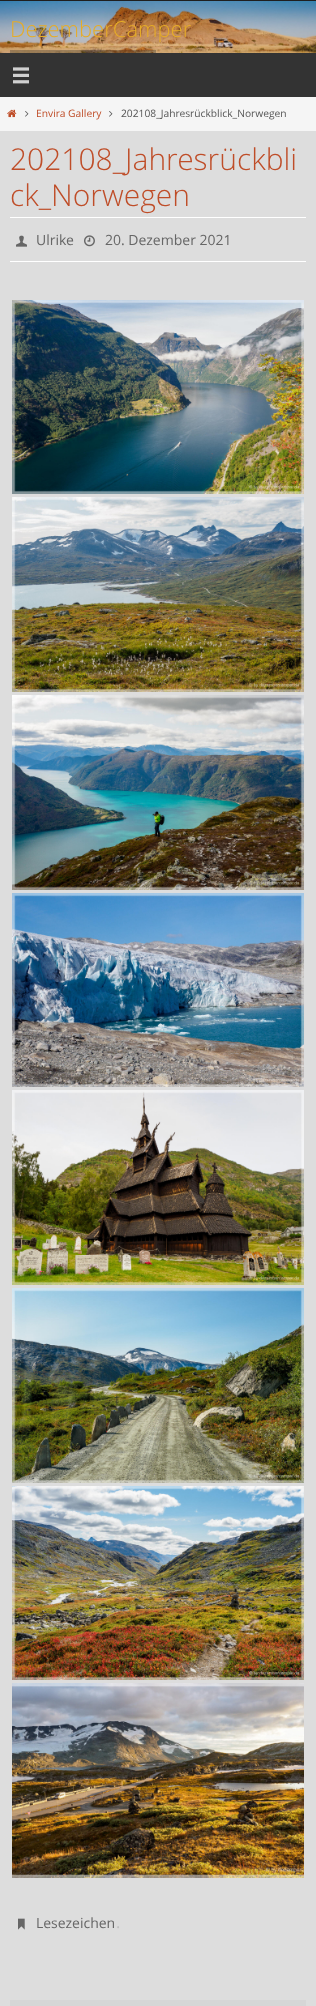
<svg xmlns="http://www.w3.org/2000/svg" xmlns:xlink="http://www.w3.org/1999/xlink" width="316" height="2006" viewBox="0 0 316 2006">
<style>
.cls-1{font:300 22px Open Sans;fill:#e6ac27}
.cls-2{font:10.25px Open Sans;fill:#bf4d28}
.cls-3{font:10.25px Open Sans;fill:#555555}
.cls-4{font:300 30px Open Sans;fill:#bf4d28}
.cls-5{font:14px Open Sans;fill:#666666}
.cls-6{font:16px Open Sans;fill:#c1c1c1}
</style>
<rect width="100%" height="100%" fill="#1f1f1f"/>
<image xlink:href="image0.png" x="0" y="1" width="316" height="52"/>
<rect fill="#222222" fill-opacity="0.3" x="10" y="50" width="146" height="3"/>
<rect fill="#333333" x="0" y="53" width="316" height="44"/>
<image xlink:href="image1.png" x="13" y="67" width="16" height="17"/>
<rect fill="#f5f5f5" x="0" y="97" width="316" height="34"/>
<image xlink:href="image2.png" x="7" y="109" width="10" height="9"/>
<image xlink:href="image3.png" x="25" y="111" width="4" height="6"/>
<image xlink:href="image3.png" x="109" y="111" width="4" height="6"/>
<rect fill="#dddddd" x="0" y="131" width="316" height="1875"/>
<rect fill="#ffffff" x="10" y="217" width="296" height="1"/>
<rect fill="#ffffff" x="10" y="261" width="296" height="1"/>
<image xlink:href="image4.png" x="16" y="235" width="11" height="12"/>
<image xlink:href="image5.png" x="84" y="235" width="11" height="12"/>
<image xlink:href="image6.png" x="12" y="300" width="292" height="194"/>
<image xlink:href="image7.png" x="12" y="497" width="292" height="195"/>
<image xlink:href="image8.png" x="12" y="695" width="292" height="195"/>
<image xlink:href="image9.png" x="12" y="893" width="292" height="194"/>
<image xlink:href="image10.png" x="12" y="1090" width="292" height="195"/>
<image xlink:href="image11.png" x="12" y="1288" width="292" height="195"/>
<image xlink:href="image12.png" x="12" y="1486" width="292" height="194"/>
<image xlink:href="image13.png" x="12" y="1683" width="292" height="195"/>
<image xlink:href="image14.png" x="18" y="1918" width="7" height="12"/>
<rect fill="#d6d6d6" x="10" y="2000" width="296" height="6"/>
<text class="cls-1" x="10" y="37">DezemberCamper</text>
<text class="cls-2" x="36" y="117">Envira Gallery</text>
<text class="cls-3" x="121" y="117">202108_Jahresrückblick_Norwegen</text>
<text class="cls-4"><tspan x="10" y="170">202108_Jahresrückbli</tspan><tspan x="10" y="206">ck_Norwegen</tspan></text>
<text class="cls-5" x="36" y="245">Ulrike</text>
<text class="cls-5" x="105" y="245">20. Dezember 2021</text>
<text class="cls-5" x="36" y="1928">Lesezeichen</text>
<text class="cls-6" x="116" y="1928">.</text>
</svg>
